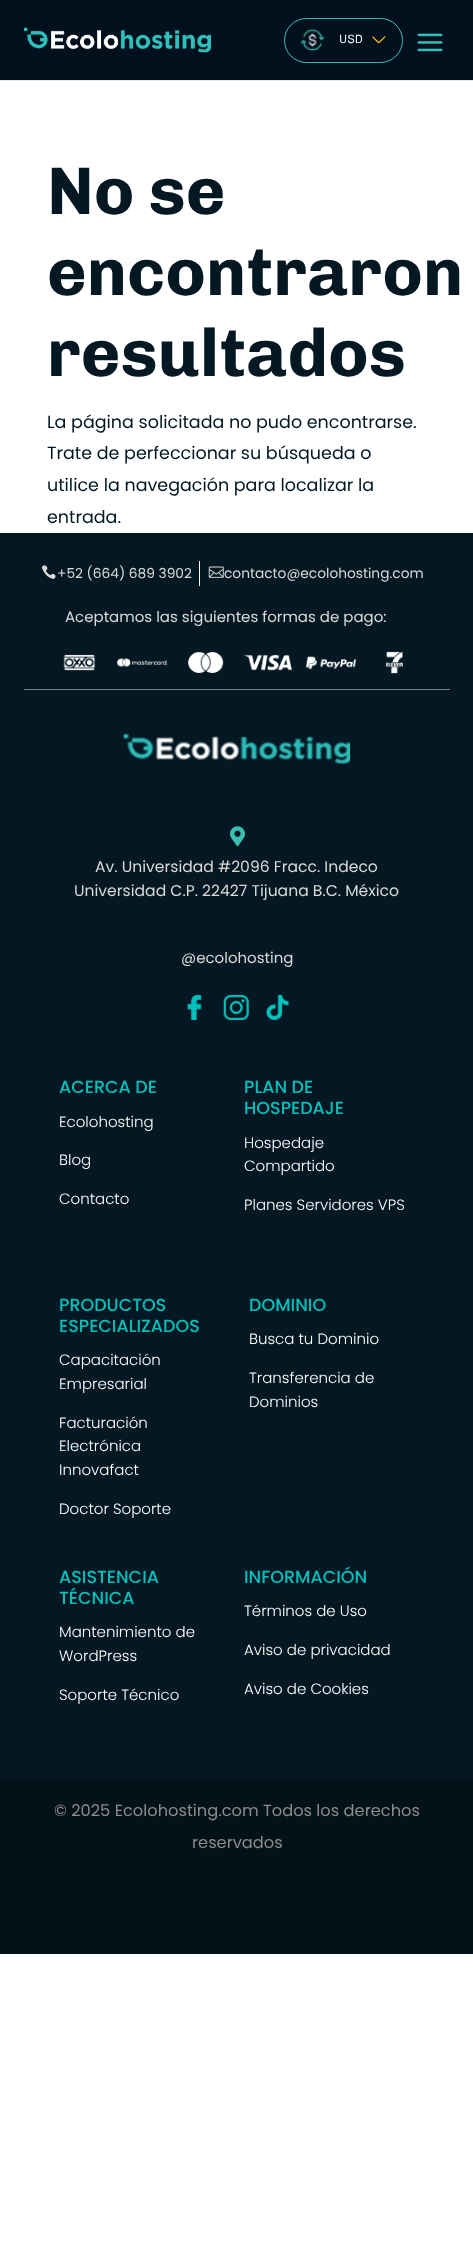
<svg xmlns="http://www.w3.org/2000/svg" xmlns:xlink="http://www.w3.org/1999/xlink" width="473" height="2253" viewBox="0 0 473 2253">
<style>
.cls-1{font:300 12px Chivo;fill:#ffffff}
.cls-2{font:500 67.5px Chivo;fill:#041823}
.cls-3{font:17.5px Poppins;fill:#041823}
.cls-4{font:13.75px Poppins;fill:#d9d9d9}
.cls-5{font:15px Poppins;fill:#d9d9d9}
.cls-6{font:15.6px Poppins;fill:#d9d9d9}
.cls-7{font:500 17.5px Poppins;fill:#00c0bb}
.cls-8{font:300 15px Poppins;fill:#ffffff}
.cls-9{font:16.25px Poppins;fill:#8c8c8c}
</style>
<rect width="100%" height="100%" fill="#ffffff"/>
<path fill="#e6e6e6" d="M0 80V81H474V1V80Z"/>
<rect fill="#00101d" x="0" y="0" width="473" height="80"/>
<image xlink:href="image0.png" x="23" y="27" width="189" height="26"/>
<rect fill="none" stroke="#3abdad" x="284.5" y="18.5" width="118" height="44" rx="22"/>
<image xlink:href="image1.png" x="300" y="28" width="25" height="24"/>
<image xlink:href="image2.png" x="372" y="36" width="14" height="7"/>
<image xlink:href="image3.png" x="417" y="33" width="26" height="19"/>
<rect fill="#041823" x="0" y="533" width="473" height="1246"/>
<rect fill="#747e83" x="24" y="689" width="426" height="1"/>
<image xlink:href="image4.png" x="41" y="565" width="15" height="14"/>
<rect fill="#ffffff" x="199" y="561" width="1" height="25"/>
<image xlink:href="image5.png" x="208" y="566" width="16" height="12"/>
<image xlink:href="image6.png" x="63" y="654" width="33" height="17"/>
<image xlink:href="image7.png" x="116" y="658" width="52" height="9"/>
<image xlink:href="image8.png" x="188" y="652" width="36" height="21"/>
<image xlink:href="image9.png" x="244" y="654" width="48" height="17"/>
<image xlink:href="image10.png" x="306" y="656" width="51" height="14"/>
<image xlink:href="image11.png" x="385" y="651" width="18" height="23"/>
<image xlink:href="image12.png" x="123" y="733" width="227" height="31"/>
<image xlink:href="image13.png" x="230" y="826" width="15" height="21"/>
<image xlink:href="image14.png" x="187" y="995" width="15" height="25"/>
<image xlink:href="image15.png" x="223" y="995" width="26" height="25"/>
<image xlink:href="image16.png" x="266" y="995" width="23" height="25"/>
<rect fill="#031118" x="0" y="1779" width="473" height="175"/>
<text class="cls-1" x="339" y="43">USD</text>
<text class="cls-2"><tspan x="47" y="214">No se</tspan><tspan x="47" y="295">encontraron</tspan><tspan x="47" y="376">resultados</tspan></text>
<text class="cls-3"><tspan x="47" y="428">La página solicitada no pudo encontrarse.</tspan><tspan x="47" y="459">Trate de perfeccionar su búsqueda o</tspan><tspan x="47" y="491">utilice la navegación para localizar la</tspan><tspan x="47" y="523">entrada.</tspan></text>
<text class="cls-4" x="57" y="578">+52 (664) 689 3902</text>
<text class="cls-4" x="224" y="578">contacto@ecolohosting.com</text>
<text class="cls-5" x="65" y="622">Aceptamos las siguientes formas de pago:</text>
<text class="cls-6" x="95" y="872">Av. Universidad #2096 Fracc. Indeco</text>
<text class="cls-6" x="74" y="896">Universidad C.P. 22427 Tijuana B.C. México</text>
<text class="cls-5" x="181" y="963">@ecolohosting</text>
<text class="cls-7" x="59" y="1093">ACERCA DE</text>
<text class="cls-8" x="59" y="1127">Ecolohosting</text>
<text class="cls-8" x="59" y="1165">Blog</text>
<text class="cls-8" x="59" y="1204">Contacto</text>
<text class="cls-7"><tspan x="244" y="1093">PLAN DE</tspan><tspan x="244" y="1114">HOSPEDAJE</tspan></text>
<text class="cls-8"><tspan x="244" y="1148">Hospedaje</tspan><tspan x="244" y="1171">Compartido</tspan></text>
<text class="cls-8" x="244" y="1210">Planes Servidores VPS</text>
<text class="cls-7"><tspan x="59" y="1311">PRODUCTOS</tspan><tspan x="59" y="1332">ESPECIALIZADOS</tspan></text>
<text class="cls-8"><tspan x="59" y="1365">Capacitación</tspan><tspan x="59" y="1389">Empresarial</tspan></text>
<text class="cls-8"><tspan x="59" y="1428">Facturación</tspan><tspan x="59" y="1451">Electrónica</tspan><tspan x="59" y="1475">Innovafact</tspan></text>
<text class="cls-8" x="59" y="1514">Doctor Soporte</text>
<text class="cls-7" x="249" y="1311">DOMINIO</text>
<text class="cls-8" x="249" y="1344">Busca tu Dominio</text>
<text class="cls-8"><tspan x="249" y="1383">Transferencia de</tspan><tspan x="249" y="1407">Dominios</tspan></text>
<text class="cls-7"><tspan x="59" y="1583">ASISTENCIA</tspan><tspan x="59" y="1604">TÉCNICA</tspan></text>
<text class="cls-8"><tspan x="59" y="1637">Mantenimiento de</tspan><tspan x="59" y="1661">WordPress</tspan></text>
<text class="cls-8" x="59" y="1700">Soporte Técnico</text>
<text class="cls-7" x="244" y="1583">INFORMACIÓN</text>
<text class="cls-8" x="244" y="1616">Términos de Uso</text>
<text class="cls-8" x="244" y="1655">Aviso de privacidad</text>
<text class="cls-8" x="244" y="1694">Aviso de Cookies</text>
<text class="cls-9" x="54" y="1816">© 2025 Ecolohosting.com Todos los derechos</text>
<text class="cls-9" x="192" y="1848">reservados</text>
</svg>
